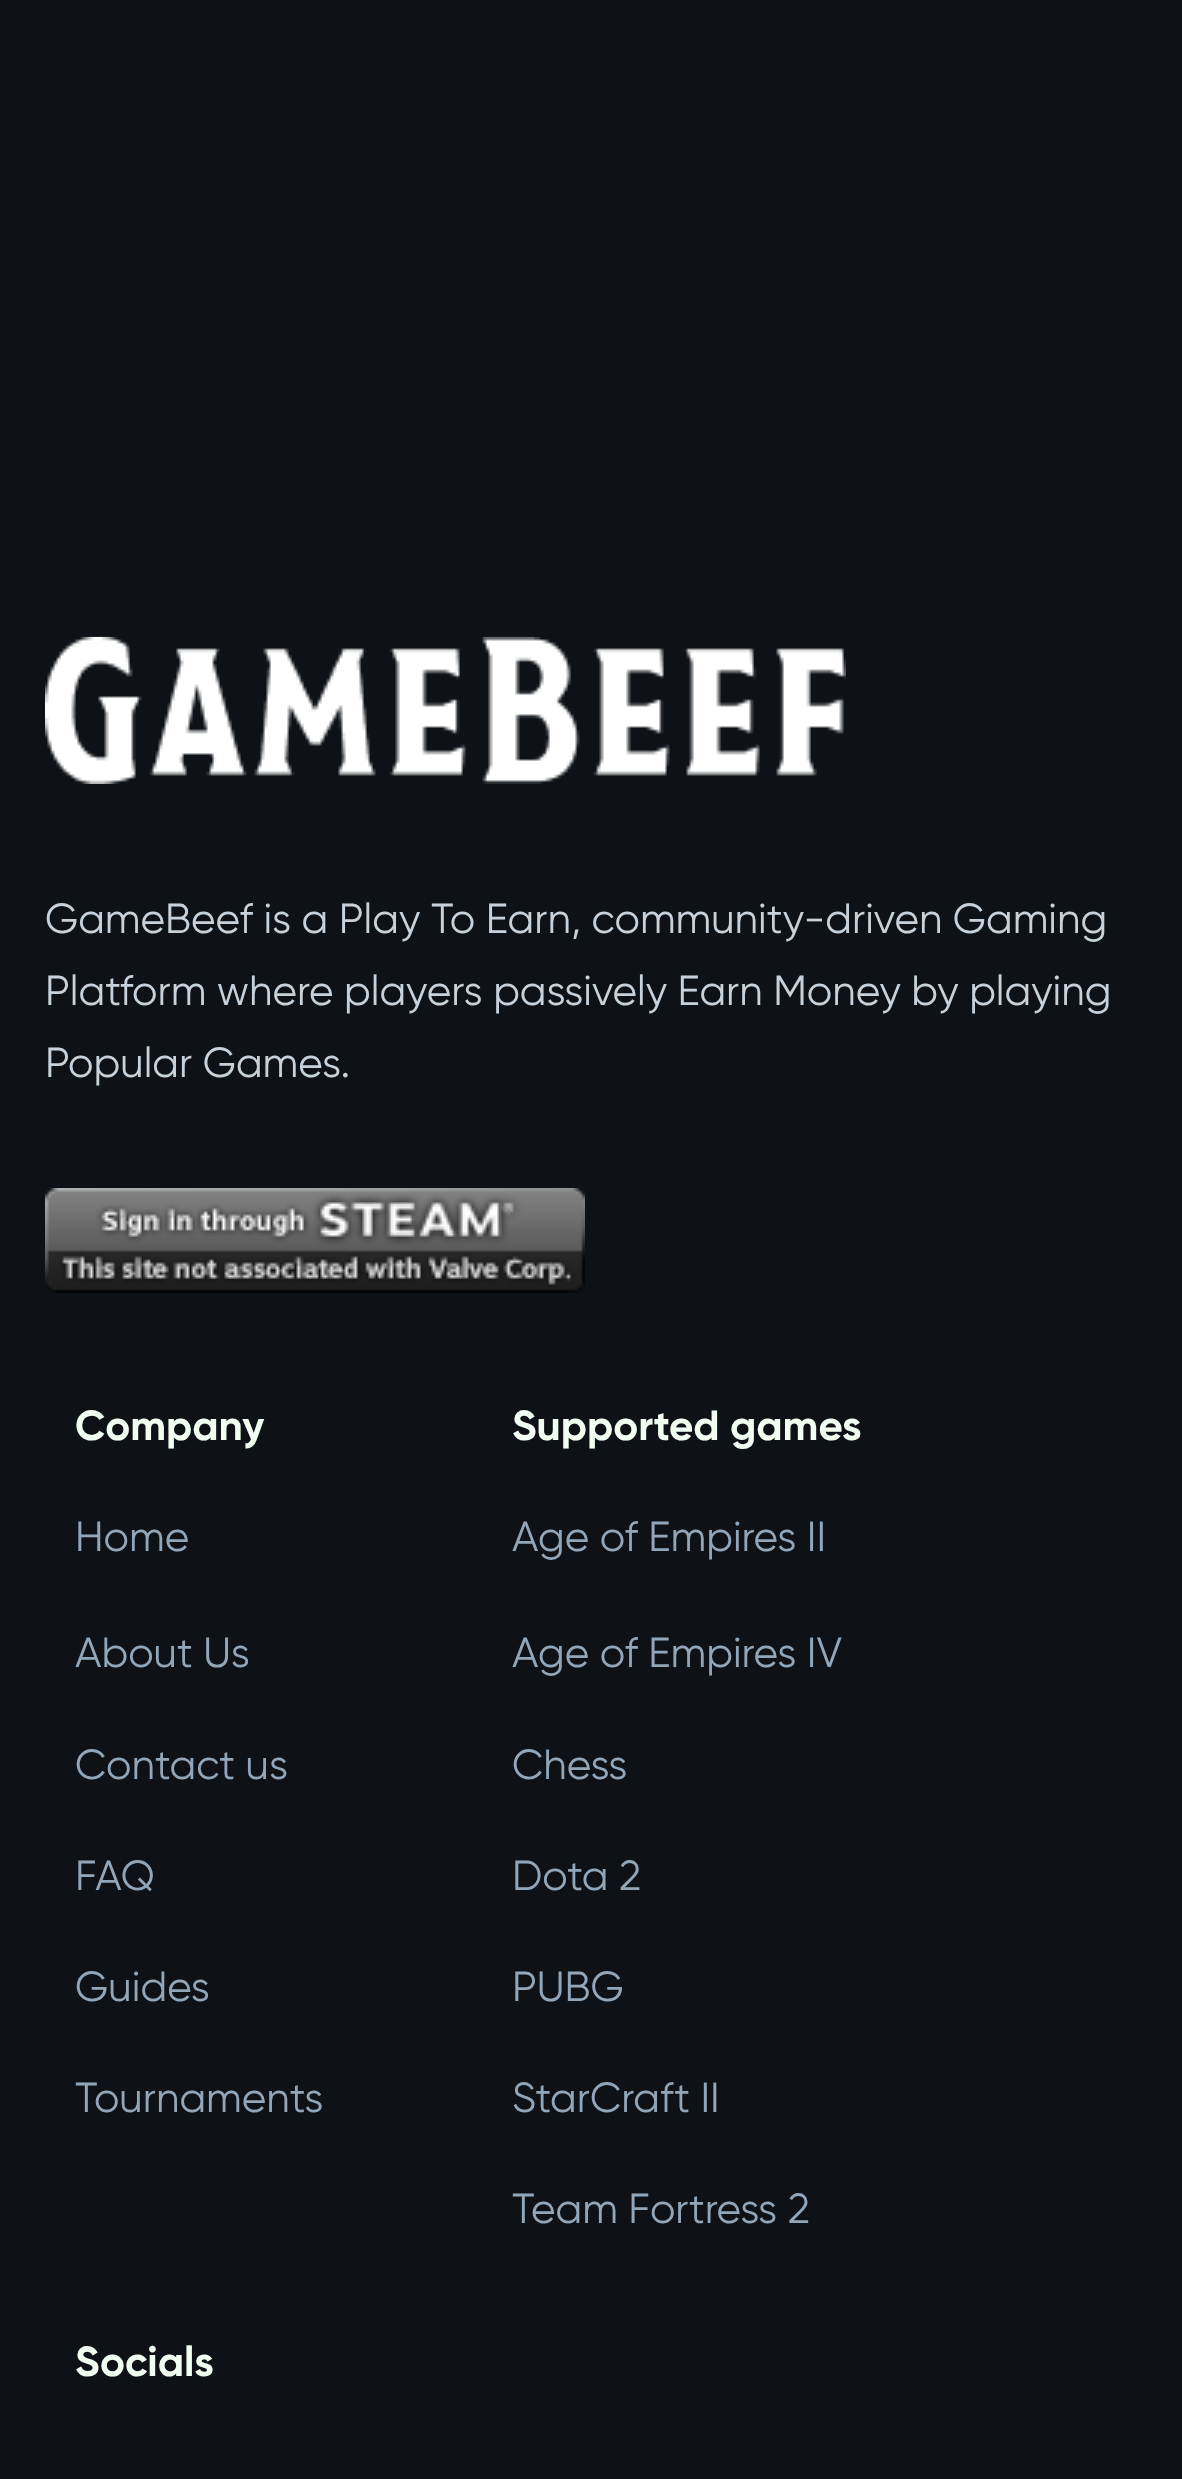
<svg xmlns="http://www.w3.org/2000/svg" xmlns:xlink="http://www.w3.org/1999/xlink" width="1182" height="2479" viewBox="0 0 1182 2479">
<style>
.cls-1{font:42px Gilroy;fill:#c7d1db}
.cls-2{font:bold 42px Gilroy;fill:#f0fff1}
.cls-3{font:42px Gilroy;fill:#92a6ba}
</style>
<rect width="100%" height="100%" fill="#0e1216"/>
<image xlink:href="image0.png" x="45" y="636" width="801" height="148"/>
<image xlink:href="image1.png" x="45" y="1188" width="540" height="105"/>
<text class="cls-1"><tspan x="45" y="933">GameBeef is a Play To Earn, community-driven Gaming</tspan><tspan x="45" y="1005">Platform where players passively Earn Money by playing</tspan><tspan x="45" y="1077">Popular Games.</tspan></text>
<text class="cls-2" x="75" y="1440">Company</text>
<text class="cls-3" x="75" y="1551">Home</text>
<text class="cls-3" x="75" y="1667">About Us</text>
<text class="cls-3" x="75" y="1779">Contact us</text>
<text class="cls-3" x="75" y="1890">FAQ</text>
<text class="cls-3" x="75" y="2001">Guides</text>
<text class="cls-3" x="75" y="2112">Tournaments</text>
<text class="cls-2" x="512" y="1440">Supported games</text>
<text class="cls-3" x="512" y="1551">Age of Empires II</text>
<text class="cls-3" x="512" y="1667">Age of Empires IV</text>
<text class="cls-3" x="512" y="1779">Chess</text>
<text class="cls-3" x="512" y="1890">Dota 2</text>
<text class="cls-3" x="512" y="2001">PUBG</text>
<text class="cls-3" x="512" y="2112">StarCraft II</text>
<text class="cls-3" x="512" y="2223">Team Fortress 2</text>
<text class="cls-2" x="75" y="2376">Socials</text>
</svg>
